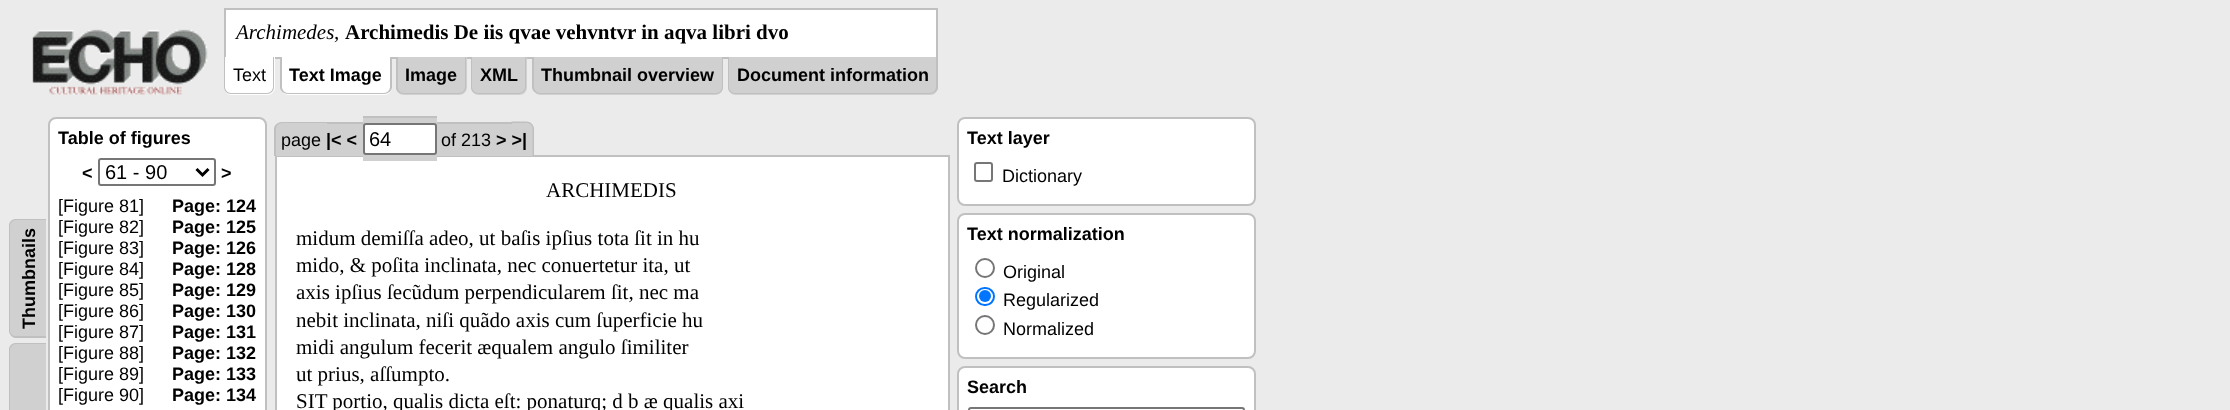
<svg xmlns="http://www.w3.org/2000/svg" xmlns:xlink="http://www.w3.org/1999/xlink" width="2230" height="410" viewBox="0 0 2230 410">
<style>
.cls-1{font:italic 21px Liberation Serif;fill:#000000}
.cls-2{font:21px Liberation Serif;fill:#000000}
.cls-3{font:bold 21px Liberation Serif;fill:#000000}
.cls-4{font:18px Liberation Sans;fill:#000000}
.cls-5{font:bold 18px Liberation Sans;fill:#000000}
.cls-6{font:20px Liberation Sans;fill:#000000}
</style>
<rect width="100%" height="100%" fill="#ebebeb"/>
<image xlink:href="image0.png" x="32" y="29" width="176" height="66"/>
<rect fill="#ffffff" stroke="#c0c0c0" stroke-width="2" x="225" y="9" width="712" height="49"/>
<path fill="#ffffff" d="M224 57H275V87C275 91.5 271.5 95 267 95H232C227.5 95 224 91.5 224 87Z"/>
<path fill="#c0c0c0" fill-rule="evenodd" d="M224 57H274V87C274 91 271 94 267 94H231C227 94 224 91 224 87ZM225 57H273V87C273 90 270 93 267 93H231C228 93 225 90 225 87Z"/>
<path fill="#ffffff" d="M281 57H392V87C392 91.5 388.5 95 384 95H289C284.5 95 281 91.5 281 87Z"/>
<path fill="#c0c0c0" fill-rule="evenodd" d="M280 57H392V87C392 91 388 94 384 94H288C284 94 280 91 280 87ZM282 57H390V87C390 90 387 93 384 93H288C285 93 282 90 282 87Z"/>
<path fill="#d0d0d0" d="M396 57H467V87C467 91.5 463.5 95 459 95H404C399.5 95 396 91.5 396 87Z"/>
<path fill="#c0c0c0" fill-rule="evenodd" d="M396 57H466V87C466 91 463 94 459 94H404C399 94 396 91 396 87ZM398 57H465V87C465 90 462 93 459 93H404C400 93 398 90 398 87Z"/>
<path fill="#d0d0d0" d="M471 57H527V87C527 91.5 523.5 95 519 95H479C474.5 95 471 91.5 471 87Z"/>
<path fill="#c0c0c0" fill-rule="evenodd" d="M471 57H526V87C526 91 523 94 519 94H478C474 94 471 91 471 87ZM472 57H525V87C525 90 522 93 519 93H478C475 93 472 90 472 87Z"/>
<path fill="#d0d0d0" d="M533 57H723V87C723 91.5 719.5 95 715 95H541C536.5 95 533 91.5 533 87Z"/>
<path fill="#c0c0c0" fill-rule="evenodd" d="M532 57H723V87C723 91 720 94 716 94H540C536 94 532 91 532 87ZM534 57H722V87C722 90 719 93 716 93H540C537 93 534 90 534 87Z"/>
<path fill="#d0d0d0" d="M728 57H938V87C938 91.5 934.5 95 930 95H736C731.5 95 728 91.5 728 87Z"/>
<path fill="#c0c0c0" fill-rule="evenodd" d="M728 57H938V87C938 91 934 94 930 94H735C731 94 728 91 728 87ZM729 57H936V87C936 90 933 93 930 93H735C732 93 729 90 729 87Z"/>
<path fill="#d0d0d0" d="M9 330V226C9 222 12 219 16 219H46V338H16C12 338 9 334 9 330Z"/>
<path fill="#c0c0c0" fill-rule="evenodd" d="M9 330V226C9 222 12 219 16 219H46V338H16C12 338 9 334 9 330ZM10 330V226C10 223 13 220 16 220H46V336H16C13 336 10 334 10 330Z"/>
<path fill="#d0d0d0" d="M9 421V350C9 346 12 343 16 343H46V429H16C12 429 9 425 9 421Z"/>
<path fill="#c0c0c0" fill-rule="evenodd" d="M9 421V350C9 346 12 343 16 343H46V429H16C12 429 9 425 9 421ZM10 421V350C10 347 13 344 16 344H46V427H16C13 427 10 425 10 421Z"/>
<rect fill="#ffffff" stroke="#c0c0c0" stroke-width="2" x="49" y="118" width="217" height="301" rx="7"/>
<rect fill="none" stroke="#767676" stroke-width="2" x="99" y="159" width="116" height="26" rx="2"/>
<path fill="none" stroke="#000000" stroke-width="3" d="M196.5 169L202.5 175L208.5 169"/>
<rect fill="#ffffff" stroke="#c0c0c0" stroke-width="2" x="276" y="156" width="673" height="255"/>
<path fill="#d0d0d0" d="M283 122H327V156H275V130C275 125.5 278.5 122 283 122Z"/>
<path fill="#c0c0c0" fill-rule="evenodd" d="M282 122H327V156H274V129C274 125 278 122 282 122ZM282 123H327V156H276V129C276 126 279 123 282 123Z"/>
<rect fill="#d0d0d0" x="327" y="124" width="15" height="32"/>
<rect fill="#c0c0c0" x="327" y="122" width="15" height="2"/>
<rect fill="#d0d0d0" x="342" y="122" width="5" height="34"/>
<rect fill="#c0c0c0" x="342" y="122" width="15" height="2"/>
<rect fill="#d0d0d0" x="347" y="124" width="10" height="32"/>
<rect fill="#d0d0d0" x="357" y="122" width="6" height="34"/>
<rect fill="#c0c0c0" x="357" y="122" width="6" height="2"/>
<rect fill="#d0d0d0" x="363" y="118" width="74" height="43"/>
<rect fill="#c0c0c0" x="363" y="116" width="74" height="2"/>
<rect fill="#d0d0d0" x="437" y="122" width="4" height="34"/>
<rect fill="#c0c0c0" x="437" y="122" width="70" height="2"/>
<rect fill="#d0d0d0" x="441" y="124" width="66" height="32"/>
<rect fill="#d0d0d0" x="507" y="122" width="5" height="34"/>
<rect fill="#c0c0c0" x="507" y="122" width="5" height="2"/>
<path fill="#d0d0d0" d="M512 122H526C530.5 122 534 125.5 534 130V156H512Z"/>
<path fill="#c0c0c0" fill-rule="evenodd" d="M511.5 121.5H526.5C530.5 121.5 534 125 534 129V156H511.5ZM511.5 123H526.5C530 123 532.5 125.5 532.5 129V156H511.5Z"/>
<rect fill="#ffffff" stroke="#767676" stroke-width="2" x="364" y="124" width="72" height="30" rx="2"/>
<rect fill="#ffffff" stroke="#c0c0c0" stroke-width="2" x="958" y="118" width="297" height="87" rx="7"/>
<rect fill="none" stroke="#767676" stroke-width="2" x="975" y="163" width="17" height="18" rx="2"/>
<rect fill="#ffffff" stroke="#c0c0c0" stroke-width="2" x="958" y="214" width="297" height="144" rx="7"/>
<circle fill="none" stroke="#767676" stroke-width="2" cx="985" cy="268" r="9"/>
<rect fill="none" stroke="#0075ff" stroke-width="2" x="976" y="288" width="18" height="17" rx="8.5"/>
<circle fill="#0075ff" cx="985" cy="296" r="6"/>
<circle fill="none" stroke="#767676" stroke-width="2" cx="985" cy="325" r="9"/>
<rect fill="#ffffff" stroke="#c0c0c0" stroke-width="2" x="958" y="367" width="297" height="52" rx="7"/>
<rect fill="none" stroke="#767676" stroke-width="2" x="969" y="408" width="275" height="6" rx="2"/>
<text class="cls-1" x="236" y="39">Archimedes</text>
<text class="cls-2" x="334" y="39">,</text>
<text class="cls-3" x="345" y="39">Archimedis De iis qvae vehvntvr in aqva libri dvo</text>
<text class="cls-4" x="233" y="81">Text</text>
<text class="cls-5" x="289" y="81">Text Image</text>
<text class="cls-5" x="405" y="81">Image</text>
<text class="cls-5" x="480" y="81">XML</text>
<text class="cls-5" x="541" y="81">Thumbnail overview</text>
<text class="cls-5" x="737" y="81">Document information</text>
<text class="cls-5" x="35" y="329" transform="rotate(-90 35 329)">Thumbnails</text>
<text class="cls-5" x="58" y="144">Table of figures</text>
<text class="cls-5" x="82" y="179">&lt;</text>
<text class="cls-6" x="105" y="179">61 - 90</text>
<text class="cls-5" x="221" y="179">&gt;</text>
<text class="cls-4" x="58" y="212">[Figure 81]</text>
<text class="cls-5" x="172" y="212">Page: 124</text>
<text class="cls-4" x="58" y="233">[Figure 82]</text>
<text class="cls-5" x="172" y="233">Page: 125</text>
<text class="cls-4" x="58" y="254">[Figure 83]</text>
<text class="cls-5" x="172" y="254">Page: 126</text>
<text class="cls-4" x="58" y="275">[Figure 84]</text>
<text class="cls-5" x="172" y="275">Page: 128</text>
<text class="cls-4" x="58" y="296">[Figure 85]</text>
<text class="cls-5" x="172" y="296">Page: 129</text>
<text class="cls-4" x="58" y="317">[Figure 86]</text>
<text class="cls-5" x="172" y="317">Page: 130</text>
<text class="cls-4" x="58" y="338">[Figure 87]</text>
<text class="cls-5" x="172" y="338">Page: 131</text>
<text class="cls-4" x="58" y="359">[Figure 88]</text>
<text class="cls-5" x="172" y="359">Page: 132</text>
<text class="cls-4" x="58" y="380">[Figure 89]</text>
<text class="cls-5" x="172" y="380">Page: 133</text>
<text class="cls-4" x="58" y="401">[Figure 90]</text>
<text class="cls-5" x="172" y="401">Page: 134</text>
<text class="cls-4" x="281" y="146">page</text>
<text class="cls-5" x="326" y="146">|&lt; &lt;</text>
<text class="cls-6" x="369" y="146">64</text>
<text class="cls-4" x="441" y="146">of 213</text>
<text class="cls-5" x="496" y="146">&gt; &gt;|</text>
<text class="cls-2" x="546" y="197">ARCHIMEDIS</text>
<text class="cls-2"><tspan x="296" y="245">midum demiſſa adeo, ut baſis ipſius tota ſit in hu</tspan><tspan x="296" y="272">mido, &amp; poſita inclinata, nec conuertetur ita, ut</tspan><tspan x="296" y="299">axis ipſius ſecũdum perpendicularem ſit, nec ma</tspan><tspan x="296" y="327">nebit inclinata, niſi quãdo axis cum ſuperficie hu</tspan><tspan x="296" y="354">midi angulum fecerit æqualem angulo ſimiliter</tspan><tspan x="296" y="381">ut prius, aſſumpto.</tspan><tspan x="296" y="408">SIT portio, qualis dicta eſt: ponaturq; d b æ qualis axi</tspan></text>
<text class="cls-5" x="967" y="144">Text layer</text>
<text class="cls-4" x="1002" y="182">Dictionary</text>
<text class="cls-5" x="967" y="240">Text normalization</text>
<text class="cls-4"><tspan x="1003" y="278">Original</tspan><tspan x="1003" y="306">Regularized</tspan><tspan x="1003" y="335">Normalized</tspan></text>
<text class="cls-5" x="967" y="393">Search</text>
</svg>
